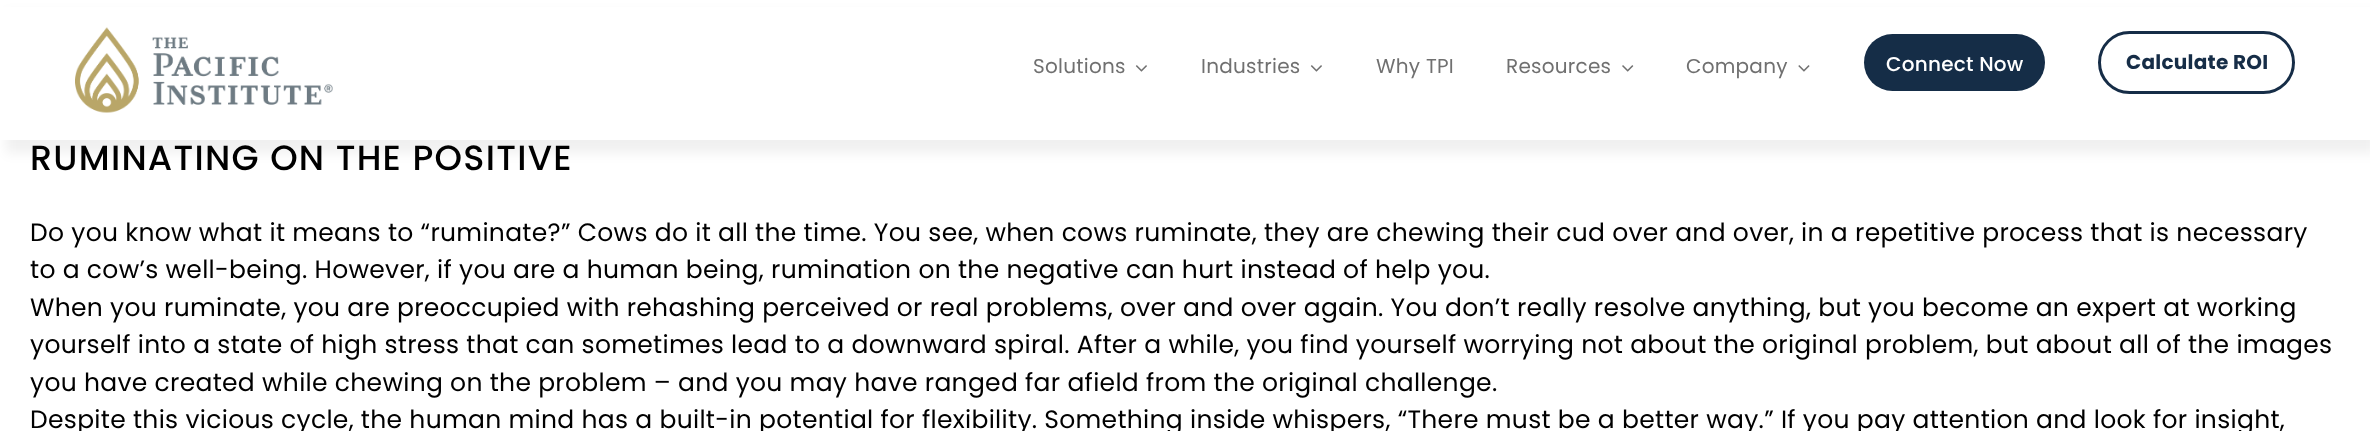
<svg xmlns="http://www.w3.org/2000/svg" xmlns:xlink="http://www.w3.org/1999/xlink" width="2370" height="431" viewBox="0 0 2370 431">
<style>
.cls-1{font:20px Poppins;letter-spacing:0.25px;fill:#707070}
.cls-2{font:500 20px Poppins;letter-spacing:0.25px;fill:#ffffff}
.cls-3{font:bold 20px Poppins;letter-spacing:0.25px;fill:#162d47}
.cls-4{font:500 35px Poppins;letter-spacing:1.25px;fill:#000000}
.cls-5{font:25px Poppins;letter-spacing:0.3px;fill:#000000}
</style>
<rect width="100%" height="100%" fill="#ffffff"/>
<rect fill="#000000" fill-opacity="0.06" filter="blur(6px)" x="6" y="13" width="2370" height="140"/>
<rect fill="#ffffff" x="0" y="7" width="2370" height="133"/>
<image xlink:href="image0.png" x="75" y="27" width="258" height="86"/>
<image xlink:href="image1.png" x="1135" y="65" width="12" height="7"/>
<image xlink:href="image1.png" x="1310" y="65" width="12" height="7"/>
<image xlink:href="image2.png" x="1622" y="65" width="12" height="7"/>
<image xlink:href="image3.png" x="1798" y="65" width="12" height="7"/>
<rect fill="#152d47" x="1864" y="34" width="181" height="57" rx="28.5"/>
<rect fill="none" stroke="#162d47" stroke-width="3" x="2099.5" y="32.5" width="194" height="60" rx="30"/>
<text class="cls-1" x="1033" y="73">Solutions</text>
<text class="cls-1" x="1201" y="73">Industries</text>
<text class="cls-1" x="1376" y="73">Why TPI</text>
<text class="cls-1" x="1506" y="73">Resources</text>
<text class="cls-1" x="1686" y="73">Company</text>
<text class="cls-2" x="1886" y="71">Connect Now</text>
<text class="cls-3" x="2126" y="69">Calculate ROI</text>
<text class="cls-4" x="30" y="170">RUMINATING ON THE POSITIVE</text>
<text class="cls-5"><tspan x="30" y="241">Do you know what it means to “ruminate?” Cows do it all the time. You see, when cows ruminate, they are chewing their cud over and over, in a repetitive process that is necessary</tspan><tspan x="30" y="278">to a cow’s well-being. However, if you are a human being, rumination on the negative can hurt instead of help you.</tspan><tspan x="30" y="316">When you ruminate, you are preoccupied with rehashing perceived or real problems, over and over again. You don’t really resolve anything, but you become an expert at working</tspan><tspan x="30" y="353">yourself into a state of high stress that can sometimes lead to a downward spiral. After a while, you find yourself worrying not about the original problem, but about all of the images</tspan><tspan x="30" y="391">you have created while chewing on the problem – and you may have ranged far afield from the original challenge.</tspan><tspan x="30" y="428">Despite this vicious cycle, the human mind has a built-in potential for flexibility. Something inside whispers, “There must be a better way.” If you pay attention and look for insight,</tspan></text>
</svg>
